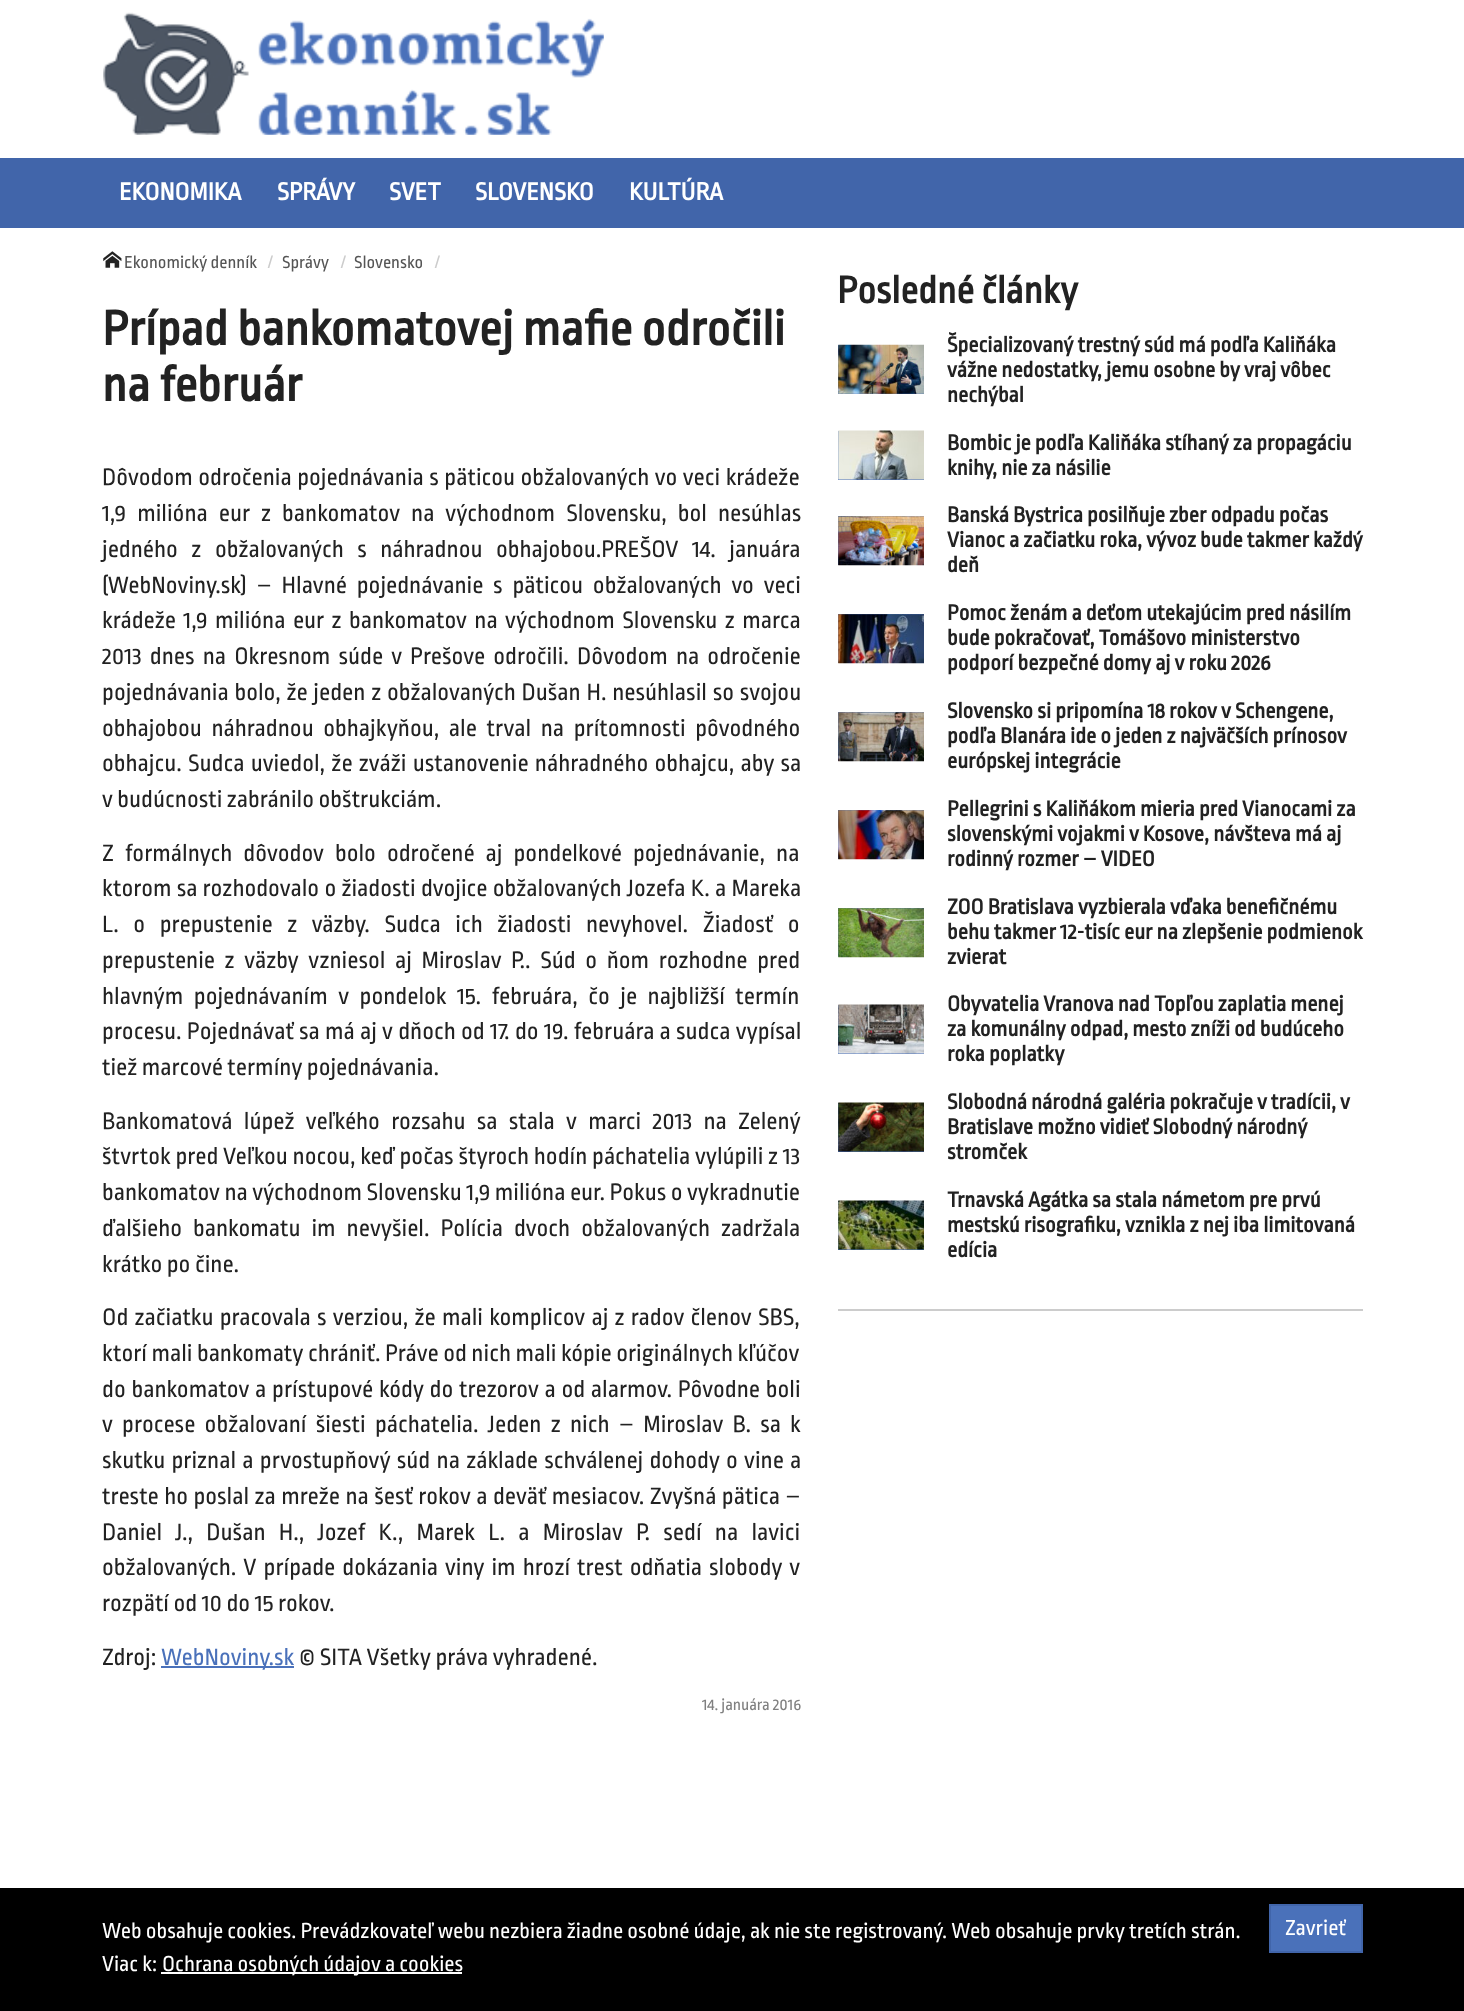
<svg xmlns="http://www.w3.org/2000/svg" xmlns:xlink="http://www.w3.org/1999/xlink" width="1464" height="2011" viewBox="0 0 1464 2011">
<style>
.cls-1{font:bold 26px Ropa Sans;fill:#ffffff}
.cls-2{font:18.25px Ropa Sans;fill:#555555}
.cls-3{font:18.25px Ropa Sans;fill:#cccccc}
.cls-4{font:bold 51.25px Ropa Sans;fill:#222222}
.cls-5{font:25px Ropa Sans;fill:#222222}
.cls-6{font:25px Ropa Sans;fill:#4a71ba}
.cls-7{font:17px Ropa Sans;fill:#808080}
.cls-8{font:bold 39.75px Ropa Sans;fill:#222222}
.cls-9{font:bold 22.75px Ropa Sans;fill:#222222}
.cls-10{font:22.75px Ropa Sans;fill:#ffffff}
</style>
<rect width="100%" height="100%" fill="#ffffff"/>
<image xlink:href="image0.png" x="103" y="12" width="501" height="123"/>
<rect fill="#4165aa" x="0" y="158" width="1464" height="70"/>
<image xlink:href="image1.png" x="103" y="251" width="19" height="17"/>
<rect fill="#4a71ba" x="161" y="1666" width="133" height="2"/>
<rect fill="#cccccc" x="838" y="1309" width="525" height="2"/>
<rect fill="#4a71ba" x="838" y="345" width="86" height="49"/>
<image xlink:href="image2.png" x="838" y="344" width="86" height="50"/>
<rect fill="#4a71ba" x="838" y="431" width="86" height="49"/>
<image xlink:href="image3.png" x="838" y="430" width="86" height="50"/>
<rect fill="#4a71ba" x="838" y="516" width="86" height="49"/>
<image xlink:href="image4.png" x="838" y="516" width="86" height="50"/>
<rect fill="#4a71ba" x="838" y="614" width="86" height="49"/>
<image xlink:href="image5.png" x="838" y="614" width="86" height="50"/>
<rect fill="#4a71ba" x="838" y="712" width="86" height="49"/>
<image xlink:href="image6.png" x="838" y="712" width="86" height="50"/>
<rect fill="#4a71ba" x="838" y="810" width="86" height="49"/>
<image xlink:href="image7.png" x="838" y="810" width="86" height="50"/>
<rect fill="#4a71ba" x="838" y="908" width="86" height="49"/>
<image xlink:href="image8.png" x="838" y="908" width="86" height="50"/>
<rect fill="#4a71ba" x="838" y="1005" width="86" height="49"/>
<image xlink:href="image9.png" x="838" y="1004" width="86" height="50"/>
<rect fill="#4a71ba" x="838" y="1103" width="86" height="49"/>
<image xlink:href="image10.png" x="838" y="1102" width="86" height="50"/>
<rect fill="#4a71ba" x="838" y="1201" width="86" height="49"/>
<image xlink:href="image11.png" x="838" y="1200" width="86" height="50"/>
<rect fill="#000000" x="0" y="1888" width="1464" height="123"/>
<rect fill="#ffffff" x="161" y="1972" width="301" height="2"/>
<rect fill="#4a71ba" stroke="#4165aa" stroke-width="2" x="1270" y="1905" width="92" height="47"/>
<text class="cls-1" x="119" y="200">EKONOMIKA</text>
<text class="cls-1" x="277" y="200">SPRÁVY</text>
<text class="cls-1" x="389" y="200">SVET</text>
<text class="cls-1" x="475" y="200">SLOVENSKO</text>
<text class="cls-1" x="629" y="200">KULTÚRA</text>
<text class="cls-2" x="124" y="268">Ekonomický denník</text>
<text class="cls-3" x="268" y="268">/</text>
<text class="cls-2" x="282" y="268">Správy</text>
<text class="cls-3" x="341" y="268">/</text>
<text class="cls-2" x="354" y="268">Slovensko</text>
<text class="cls-3" x="435" y="268">/</text>
<text class="cls-4"><tspan x="102" y="345">Prípad bankomatovej mafie odročili</tspan><tspan x="102" y="401">na február</tspan></text>
<text class="cls-5"><tspan x="102" y="485" word-spacing="1">Dôvodom odročenia pojednávania s päticou obžalovaných vo veci krádeže</tspan><tspan x="102" y="521" word-spacing="6.5">1,9 milióna eur z bankomatov na východnom Slovensku, bol nesúhlas</tspan><tspan x="102" y="557" word-spacing="9">jedného z obžalovaných s náhradnou obhajobou.PREŠOV 14. januára</tspan><tspan x="102" y="593" word-spacing="5.25">(WebNoviny.sk) – Hlavné pojednávanie s päticou obžalovaných vo veci</tspan><tspan x="102" y="628" word-spacing="2.9">krádeže 1,9 milióna eur z bankomatov na východnom Slovensku z marca</tspan><tspan x="102" y="664" word-spacing="3.6">2013 dnes na Okresnom súde v Prešove odročili. Dôvodom na odročenie</tspan><tspan x="102" y="700" word-spacing="1.25">pojednávania bolo, že jeden z obžalovaných Dušan H. nesúhlasil so svojou</tspan><tspan x="102" y="736" word-spacing="5.1">obhajobou náhradnou obhajkyňou, ale trval na prítomnosti pôvodného</tspan><tspan x="102" y="771" word-spacing="1.75">obhajcu. Sudca uviedol, že zváži ustanovenie náhradného obhajcu, aby sa</tspan><tspan x="102" y="807">v budúcnosti zabránilo obštrukciám.</tspan></text>
<text class="cls-5"><tspan x="102" y="861" word-spacing="6.5">Z formálnych dôvodov bolo odročené aj pondelkové pojednávanie, na</tspan><tspan x="102" y="896" word-spacing="0.75">ktorom sa rozhodovalo o žiadosti dvojice obžalovaných Jozefa K. a Mareka</tspan><tspan x="102" y="932" word-spacing="10">L. o prepustenie z väzby. Sudca ich žiadosti nevyhovel. Žiadosť o</tspan><tspan x="102" y="968" word-spacing="5.1">prepustenie z väzby vzniesol aj Miroslav P.. Súd o ňom rozhodne pred</tspan><tspan x="102" y="1004" word-spacing="6">hlavným pojednávaním v pondelok 15. februára, čo je najbližší termín</tspan><tspan x="102" y="1039" word-spacing="0.75">procesu. Pojednávať sa má aj v dňoch od 17. do 19. februára a sudca vypísal</tspan><tspan x="102" y="1075">tiež marcové termíny pojednávania.</tspan></text>
<text class="cls-5"><tspan x="102" y="1129" word-spacing="6.75">Bankomatová lúpež veľkého rozsahu sa stala v marci 2013 na Zelený</tspan><tspan x="102" y="1164" word-spacing="0.25">štvrtok pred Veľkou nocou, keď počas štyroch hodín páchatelia vylúpili z 13</tspan><tspan x="102" y="1200">bankomatov na východnom Slovensku 1,9 milióna eur. Pokus o vykradnutie</tspan><tspan x="102" y="1236" word-spacing="6.5">ďalšieho bankomatu im nevyšiel. Polícia dvoch obžalovaných zadržala</tspan><tspan x="102" y="1272">krátko po čine.</tspan></text>
<text class="cls-5"><tspan x="102" y="1325" word-spacing="1.75">Od začiatku pracovala s verziou, že mali komplicov aj z radov členov SBS,</tspan><tspan x="102" y="1361">ktorí mali bankomaty chrániť. Práve od nich mali kópie originálnych kľúčov</tspan><tspan x="102" y="1397" word-spacing="1.25">do bankomatov a prístupové kódy do trezorov a od alarmov. Pôvodne boli</tspan><tspan x="102" y="1432" word-spacing="4.75">v procese obžalovaní šiesti páchatelia. Jeden z nich – Miroslav B. sa k</tspan><tspan x="102" y="1468" word-spacing="1.75">skutku priznal a prvostupňový súd na základe schválenej dohody o vine a</tspan><tspan x="102" y="1504" word-spacing="0.9">treste ho poslal za mreže na šesť rokov a deväť mesiacov. Zvyšná pätica –</tspan><tspan x="102" y="1540" word-spacing="8.75">Daniel J., Dušan H., Jozef K., Marek L. a Miroslav P. sedí na lavici</tspan><tspan x="102" y="1575" word-spacing="2.5">obžalovaných. V prípade dokázania viny im hrozí trest odňatia slobody v</tspan><tspan x="102" y="1611">rozpätí od 10 do 15 rokov.</tspan></text>
<text class="cls-5" x="102" y="1665">Zdroj:</text>
<text class="cls-6" x="161" y="1665">WebNoviny.sk</text>
<text class="cls-5" x="299" y="1665">© SITA Všetky práva vyhradené.</text>
<text class="cls-7" x="702" y="1710">14. januára 2016</text>
<text class="cls-8" x="837" y="303">Posledné články</text>
<text class="cls-9"><tspan x="947" y="352">Špecializovaný trestný súd má podľa Kaliňáka</tspan><tspan x="947" y="377">vážne nedostatky, jemu osobne by vraj vôbec</tspan><tspan x="947" y="402">nechýbal</tspan></text>
<text class="cls-9"><tspan x="947" y="450">Bombic je podľa Kaliňáka stíhaný za propagáciu</tspan><tspan x="947" y="475">knihy, nie za násilie</tspan></text>
<text class="cls-9"><tspan x="947" y="522">Banská Bystrica posilňuje zber odpadu počas</tspan><tspan x="947" y="547">Vianoc a začiatku roka, vývoz bude takmer každý</tspan><tspan x="947" y="572">deň</tspan></text>
<text class="cls-9"><tspan x="947" y="620">Pomoc ženám a deťom utekajúcim pred násilím</tspan><tspan x="947" y="645">bude pokračovať, Tomášovo ministerstvo</tspan><tspan x="947" y="670">podporí bezpečné domy aj v roku 2026</tspan></text>
<text class="cls-9"><tspan x="947" y="718">Slovensko si pripomína 18 rokov v Schengene,</tspan><tspan x="947" y="743">podľa Blanára ide o jeden z najväčších prínosov</tspan><tspan x="947" y="768">európskej integrácie</tspan></text>
<text class="cls-9"><tspan x="947" y="816">Pellegrini s Kaliňákom mieria pred Vianocami za</tspan><tspan x="947" y="841">slovenskými vojakmi v Kosove, návšteva má aj</tspan><tspan x="947" y="866">rodinný rozmer – VIDEO</tspan></text>
<text class="cls-9"><tspan x="947" y="914">ZOO Bratislava vyzbierala vďaka benefičnému</tspan><tspan x="947" y="939">behu takmer 12-tisíc eur na zlepšenie podmienok</tspan><tspan x="947" y="964">zvierat</tspan></text>
<text class="cls-9"><tspan x="947" y="1011">Obyvatelia Vranova nad Topľou zaplatia menej</tspan><tspan x="947" y="1036">za komunálny odpad, mesto zníži od budúceho</tspan><tspan x="947" y="1061">roka poplatky</tspan></text>
<text class="cls-9"><tspan x="947" y="1109">Slobodná národná galéria pokračuje v tradícii, v</tspan><tspan x="947" y="1134">Bratislave možno vidieť Slobodný národný</tspan><tspan x="947" y="1159">stromček</tspan></text>
<text class="cls-9"><tspan x="947" y="1207">Trnavská Agátka sa stala námetom pre prvú</tspan><tspan x="947" y="1232">mestskú risografiku, vznikla z nej iba limitovaná</tspan><tspan x="947" y="1257">edícia</tspan></text>
<text class="cls-10"><tspan x="102" y="1938">Web obsahuje cookies. Prevádzkovateľ webu nezbiera žiadne osobné údaje, ak nie ste registrovaný. Web obsahuje prvky tretích strán.</tspan><tspan x="102" y="1971">Viac k:</tspan></text>
<text class="cls-10" x="162" y="1971">Ochrana osobných údajov a cookies</text>
<text class="cls-10" x="1285" y="1935">Zavrieť</text>
</svg>
